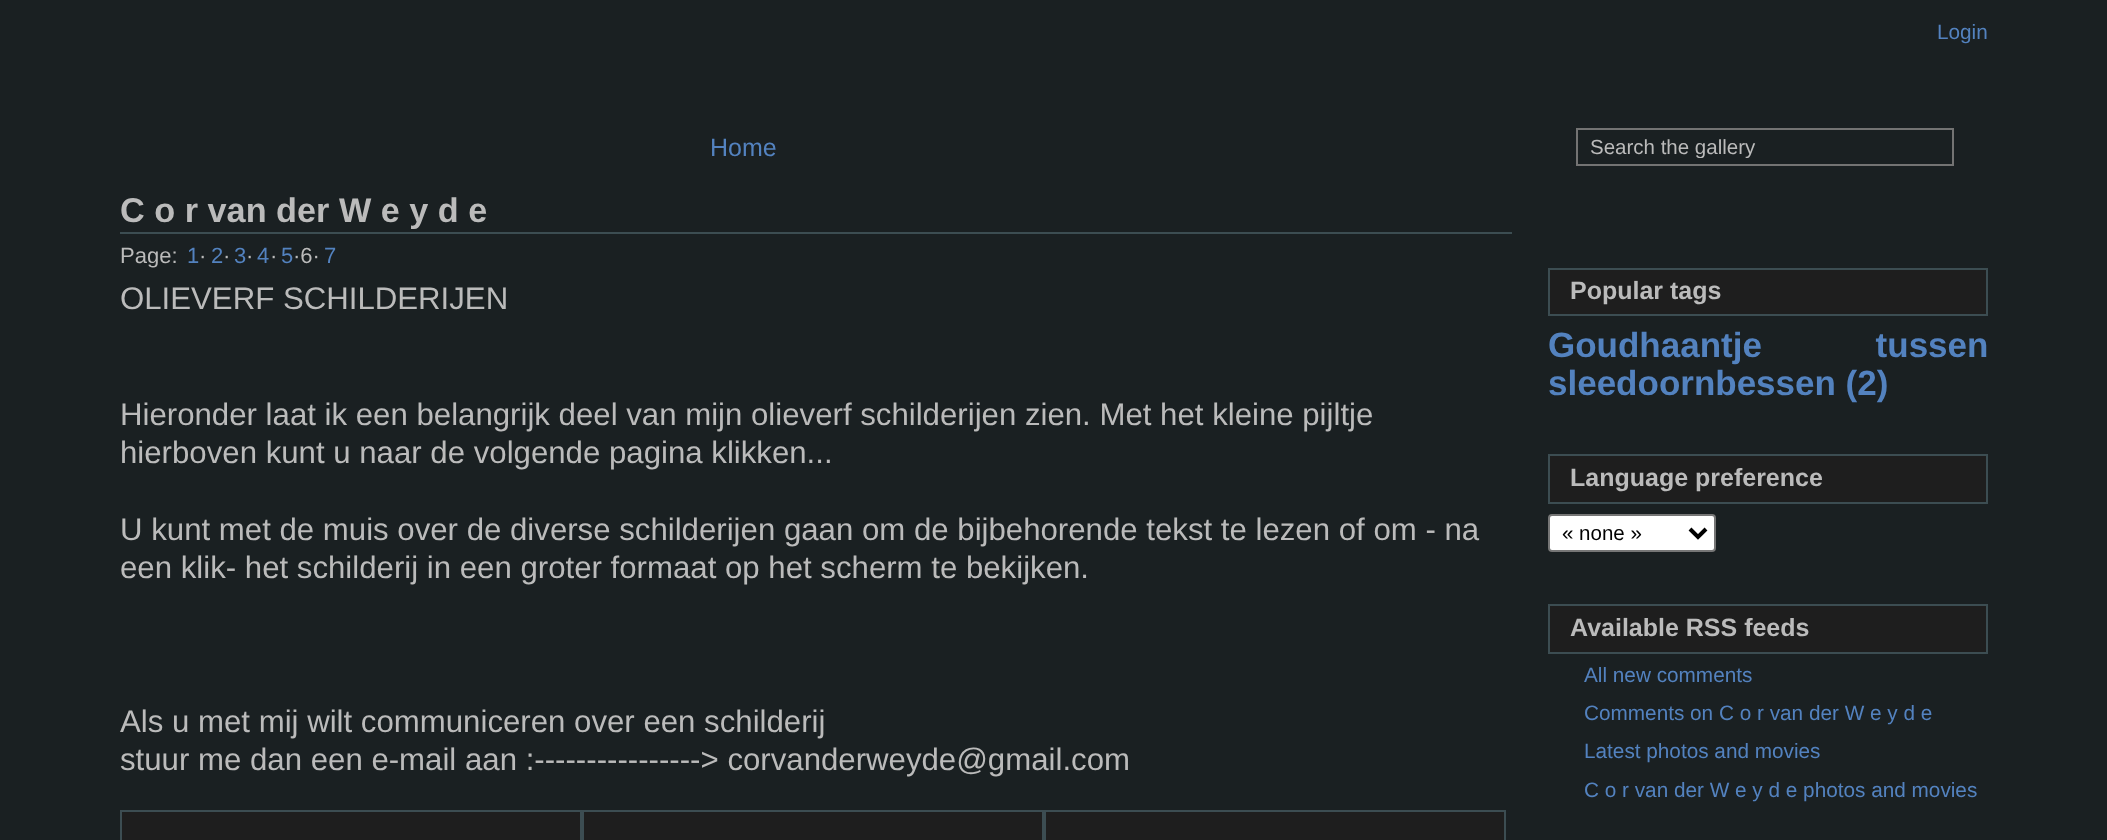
<svg xmlns="http://www.w3.org/2000/svg" xmlns:xlink="http://www.w3.org/1999/xlink" width="2107" height="840" viewBox="0 0 2107 840">
<style>
.cls-1{font:20.75px Liberation Sans;fill:#5382bf}
.cls-2{font:25px Liberation Sans;fill:#5382bf}
.cls-3{font:20.5px Liberation Sans;fill:#bbbbbb}
.cls-4{font:bold 34.25px Liberation Sans;fill:#bbbbbb}
.cls-5{font:22px Liberation Sans;fill:#bbbbbb}
.cls-6{font:22px Liberation Sans;fill:#5382bf}
.cls-7{font:31.2px Liberation Sans;fill:#bbbbbb}
.cls-8{font:bold 25px Liberation Sans;fill:#bbbbbb}
.cls-9{font:bold 35px Liberation Sans;fill:#5382bf}
.cls-10{font:20.5px Liberation Sans;fill:#000000}
</style>
<defs>
<clipPath id="clip1"><rect x="1590" y="136" width="350" height="22"/></clipPath>
</defs>
<rect width="100%" height="100%" fill="#1a2022"/>
<rect fill="none" stroke="#737373" stroke-width="2" x="1577" y="129" width="376" height="36"/>
<rect fill="#3c4d52" x="120" y="232" width="1392" height="2"/>
<rect fill="#1e1e1e" stroke="#3c4d52" stroke-width="2" x="121" y="811" width="460" height="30"/>
<rect fill="#1e1e1e" stroke="#3c4d52" stroke-width="2" x="583" y="811" width="460" height="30"/>
<rect fill="#1e1e1e" stroke="#3c4d52" stroke-width="2" x="1045" y="811" width="460" height="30"/>
<rect fill="#1e1e1e" stroke="#3c4d52" stroke-width="2" x="1549" y="269" width="438" height="46"/>
<rect fill="#1e1e1e" stroke="#3c4d52" stroke-width="2" x="1549" y="455" width="438" height="48"/>
<rect fill="#ffffff" stroke="#767676" stroke-width="2" x="1549" y="515" width="166" height="36" rx="3"/>
<path fill="none" stroke="#000000" stroke-width="4" d="M1690 529L1698 537L1706 529"/>
<rect fill="#1e1e1e" stroke="#3c4d52" stroke-width="2" x="1549" y="605" width="438" height="48"/>
<text class="cls-1" x="1937" y="39">Login</text>
<text class="cls-2" x="710" y="156">Home</text>
<g clip-path="url(#clip1)">
<text class="cls-3" x="1590" y="154">Search the gallery</text>
</g>
<text class="cls-4" x="120" y="222">C o r van der W e y d e</text>
<text class="cls-5" x="120" y="263">Page:</text>
<text class="cls-6" x="187" y="263">1</text>
<text class="cls-5" x="199" y="263">·</text>
<text class="cls-6" x="211" y="263">2</text>
<text class="cls-5" x="223" y="263">·</text>
<text class="cls-6" x="234" y="263">3</text>
<text class="cls-5" x="246" y="263">·</text>
<text class="cls-6" x="257" y="263">4</text>
<text class="cls-5" x="270" y="263">·</text>
<text class="cls-6" x="281" y="263">5</text>
<text class="cls-5" x="293" y="263">·6·</text>
<text class="cls-6" x="324" y="263">7</text>
<text class="cls-7" x="120" y="309">OLIEVERF SCHILDERIJEN</text>
<text class="cls-7"><tspan x="120" y="425">Hieronder laat ik een belangrijk deel van mijn olieverf schilderijen zien. Met het kleine pijltje</tspan><tspan x="120" y="463">hierboven kunt u naar de volgende pagina klikken...</tspan></text>
<text class="cls-7"><tspan x="120" y="540">U kunt met de muis over de diverse schilderijen gaan om de bijbehorende tekst te lezen of om - na</tspan><tspan x="120" y="578">een klik- het schilderij in een groter formaat op het scherm te bekijken.</tspan></text>
<text class="cls-7"><tspan x="120" y="732">Als u met mij wilt communiceren over een schilderij</tspan><tspan x="120" y="770">stuur me dan een e-mail aan :----------------&gt; corvanderweyde@gmail.com</tspan></text>
<text class="cls-8" x="1570" y="299">Popular tags</text>
<text class="cls-9"><tspan x="1548" y="357" word-spacing="104">Goudhaantje tussen</tspan><tspan x="1548" y="395">sleedoornbessen (2)</tspan></text>
<text class="cls-8" x="1570" y="486">Language preference</text>
<text class="cls-10" x="1562" y="540">« none »</text>
<text class="cls-8" x="1570" y="636">Available RSS feeds</text>
<text class="cls-1"><tspan x="1584" y="682">All new comments</tspan><tspan x="1584" y="720">Comments on C o r van der W e y d e</tspan><tspan x="1584" y="758">Latest photos and movies</tspan><tspan x="1584" y="797">C o r van der W e y d e photos and movies</tspan></text>
</svg>
